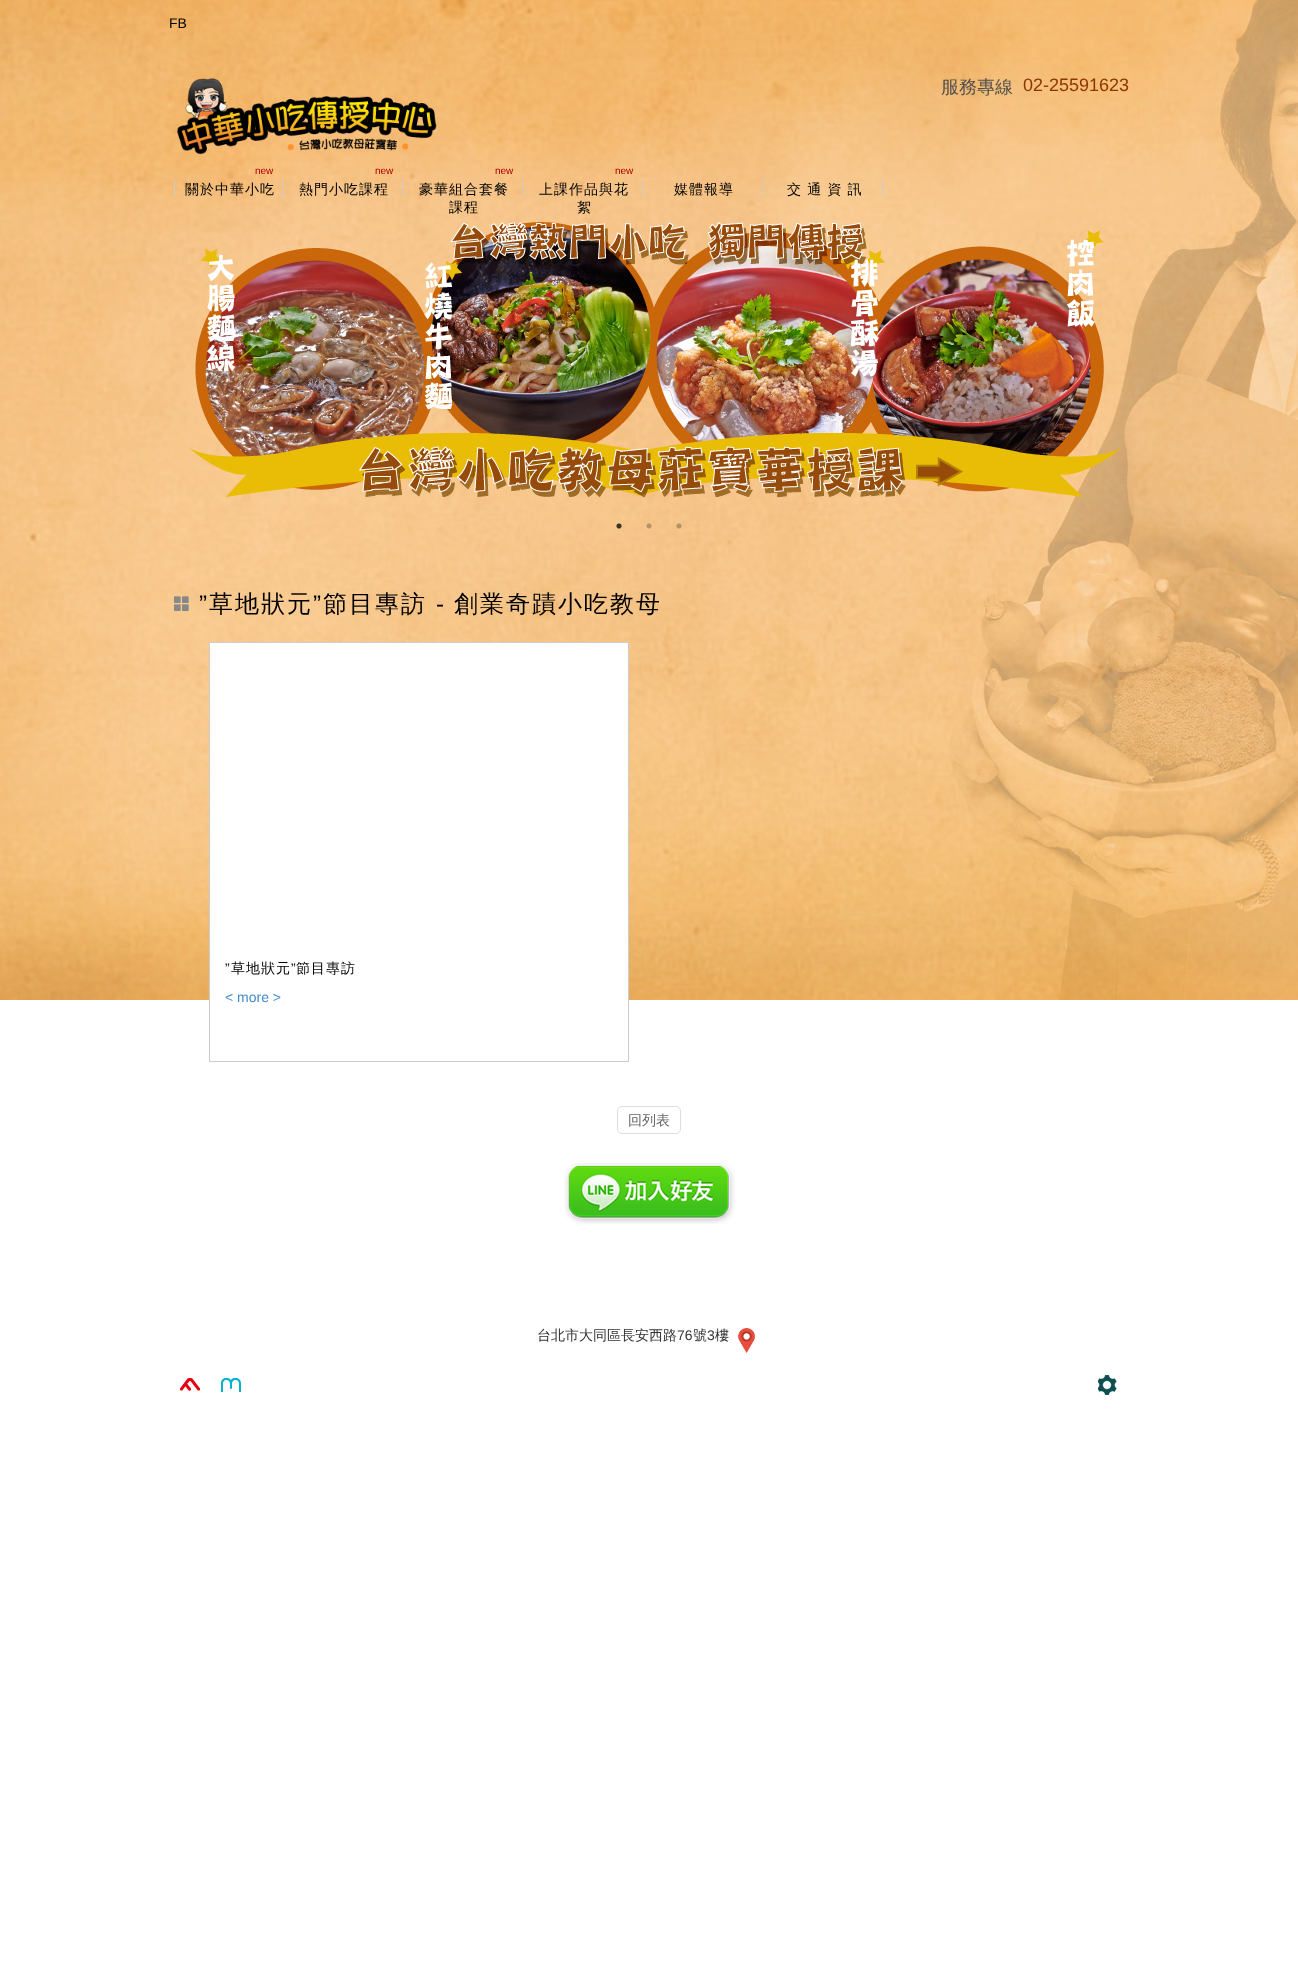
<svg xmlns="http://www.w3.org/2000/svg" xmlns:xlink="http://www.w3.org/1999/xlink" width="1298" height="1964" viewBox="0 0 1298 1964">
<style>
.cls-1{font:14px Liberation Sans;fill:#000000}
.cls-2{font:500 18px WenQuanYi Zen Hei;fill:#4f4f4f}
.cls-3{font:18px Liberation Sans;fill:#8e3500}
.cls-4{font:10px Liberation Sans;fill:#b30000}
.cls-5{font:500 14px WenQuanYi Zen Hei;letter-spacing:1px;fill:#000000}
.cls-6{font:24px Liberation Sans;letter-spacing:2px;fill:#000000}
.cls-7{font:500 24px WenQuanYi Zen Hei;letter-spacing:2px;fill:#000000}
.cls-8{font:14px Liberation Sans;letter-spacing:1px;fill:#000000}
.cls-9{font:14px Liberation Sans;fill:#428bca}
.cls-10{font:500 14px WenQuanYi Zen Hei;fill:#666666}
.cls-11{font:500 14px WenQuanYi Zen Hei;fill:#333333}
.cls-12{font:14px Liberation Sans;fill:#333333}
</style>
<rect width="100%" height="100%" fill="#ffffff"/>
<image xlink:href="image0.png" x="0" y="0" width="1298" height="1000"/>
<image xlink:href="image1.png" x="176" y="78" width="261" height="77"/>
<rect fill="#cccccc" x="283" y="180" width="1" height="16"/>
<rect fill="#cccccc" x="174" y="180" width="1" height="16"/>
<rect fill="#cccccc" x="403" y="180" width="1" height="16"/>
<rect fill="#cccccc" x="523" y="180" width="1" height="16"/>
<rect fill="#cccccc" x="643" y="180" width="1" height="16"/>
<rect fill="#cccccc" x="763" y="180" width="1" height="16"/>
<rect fill="#cccccc" x="883" y="180" width="1" height="16"/>
<image xlink:href="image2.png" x="190" y="222" width="931" height="276"/>
<image xlink:href="image3.png" x="616" y="523" width="6" height="6"/>
<image xlink:href="image4.png" x="646" y="523" width="6" height="6"/>
<image xlink:href="image5.png" x="676" y="523" width="6" height="6"/>
<image xlink:href="image6.png" x="174" y="596" width="15" height="15"/>
<rect fill="#ffffff" x="210" y="643" width="418" height="357"/>
<rect fill="none" stroke="#cccccc" x="209.5" y="642.5" width="419" height="419"/>
<rect fill="none" stroke="#dddddd" x="617.5" y="1106.5" width="63" height="27" rx="4.5"/>
<image xlink:href="image7.png" x="564" y="1162" width="171" height="62"/>
<image xlink:href="image8.png" x="738" y="1328" width="17" height="25"/>
<image xlink:href="image9.png" x="180" y="1378" width="20" height="13"/>
<image xlink:href="image10.png" x="221" y="1378" width="20" height="14"/>
<image xlink:href="image11.png" x="1098" y="1375" width="19" height="20"/>
<text class="cls-1" x="169" y="28">FB</text>
<text class="cls-2" x="941" y="93">服務專線</text>
<text class="cls-3" x="1023" y="91">02-25591623</text>
<text class="cls-4" x="255" y="174">new</text>
<text class="cls-5" x="185" y="194">關於中華小吃</text>
<text class="cls-4" x="375" y="174">new</text>
<text class="cls-5" x="299" y="194">熱門小吃課程</text>
<text class="cls-4" x="495" y="174">new</text>
<text class="cls-5" x="419" y="194">豪華組合套餐</text>
<text class="cls-5" x="449" y="212">課程</text>
<text class="cls-4" x="615" y="174">new</text>
<text class="cls-5" x="539" y="194">上課作品與花</text>
<text class="cls-5" x="577" y="212">絮</text>
<text class="cls-5" x="674" y="194">媒體報導</text>
<text class="cls-5" x="787" y="194">交 通 資 訊</text>
<text class="cls-6" x="199" y="612">”</text>
<text class="cls-7" x="209" y="612">草地狀元</text>
<text class="cls-6" x="313" y="612">”</text>
<text class="cls-7" x="323" y="612">節目專訪</text>
<text class="cls-6" x="436" y="612">-</text>
<text class="cls-7" x="454" y="612">創業奇蹟小吃教母</text>
<text class="cls-8" x="225" y="973">”</text>
<text class="cls-5" x="231" y="973">草地狀元</text>
<text class="cls-8" x="291" y="973">”</text>
<text class="cls-5" x="296" y="973">節目專訪</text>
<text class="cls-9" x="225" y="1002">&lt; more &gt;</text>
<text class="cls-10" x="628" y="1125">回列表</text>
<text class="cls-11" x="537" y="1340">台北市大同區長安西路</text>
<text class="cls-12" x="677" y="1340">76</text>
<text class="cls-11" x="693" y="1340">號</text>
<text class="cls-12" x="707" y="1340">3</text>
<text class="cls-11" x="715" y="1340">樓</text>
</svg>
